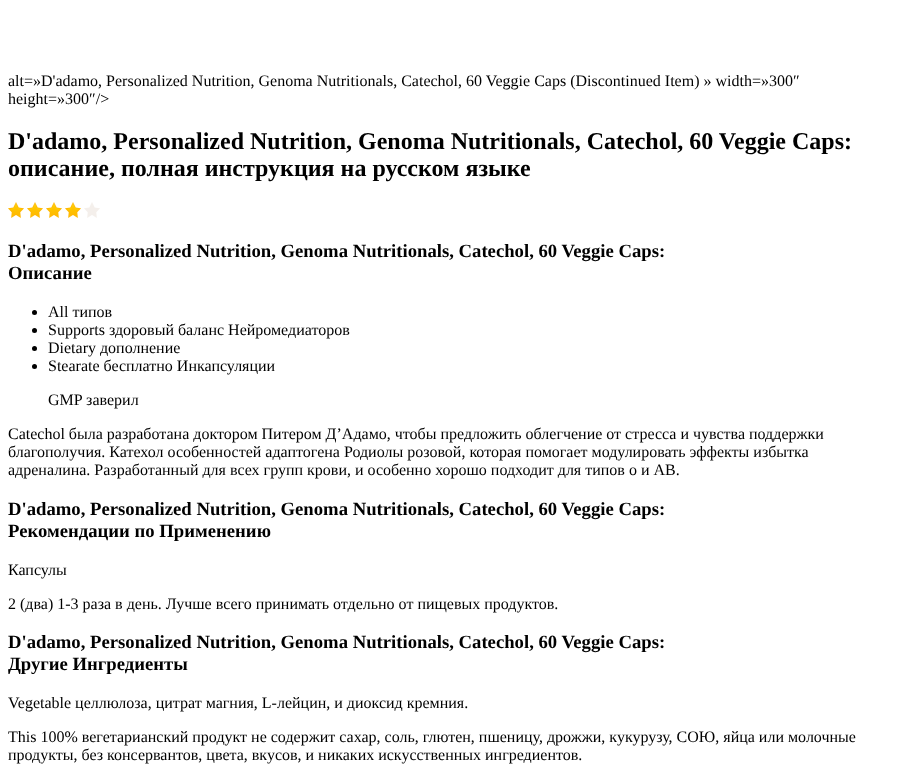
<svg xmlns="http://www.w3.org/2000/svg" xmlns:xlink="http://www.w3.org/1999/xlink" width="900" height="772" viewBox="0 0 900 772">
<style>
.cls-1{font:16px Liberation Serif;fill:#000000}
.cls-2{font:bold 24px Liberation Serif;fill:#000000}
.cls-3{font:bold 18.7px Liberation Serif;fill:#000000}
</style>
<rect width="100%" height="100%" fill="#ffffff"/>
<image xlink:href="image0.png" x="8" y="202" width="92" height="16"/>
<circle fill="#000000" cx="34.5" cy="312.5" r="2.5"/>
<circle fill="#000000" cx="34.5" cy="330.5" r="2.5"/>
<circle fill="#000000" cx="34.5" cy="348.5" r="2.5"/>
<circle fill="#000000" cx="34.5" cy="366.5" r="2.5"/>
<text class="cls-1"><tspan x="8" y="86">alt=»D'adamo, Personalized Nutrition, Genoma Nutritionals, Catechol, 60 Veggie Caps (Discontinued Item) » width=»300″</tspan><tspan x="8" y="104">height=»300″/&gt;</tspan></text>
<text class="cls-2"><tspan x="8" y="149">D'adamo, Personalized Nutrition, Genoma Nutritionals, Catechol, 60 Veggie Caps:</tspan><tspan x="8" y="176">описание, полная инструкция на русском языке</tspan></text>
<text class="cls-3"><tspan x="8" y="257">D'adamo, Personalized Nutrition, Genoma Nutritionals, Catechol, 60 Veggie Caps:</tspan><tspan x="8" y="279">Описание</tspan></text>
<text class="cls-1"><tspan x="48" y="317">All типов</tspan><tspan x="48" y="335">Supports здоровый баланс Нейромедиаторов</tspan><tspan x="48" y="353">Dietary дополнение</tspan><tspan x="48" y="371">Stearate бесплатно Инкапсуляции</tspan></text>
<text class="cls-1" x="48" y="405">GMP заверил</text>
<text class="cls-1"><tspan x="8" y="439">Catechol была разработана доктором Питером Д’Адамо, чтобы предложить облегчение от стресса и чувства поддержки</tspan><tspan x="8" y="457">благополучия. Катехол особенностей адаптогена Родиолы розовой, которая помогает модулировать эффекты избытка</tspan><tspan x="8" y="475">адреналина. Разработанный для всех групп крови, и особенно хорошо подходит для типов o и AB.</tspan></text>
<text class="cls-3"><tspan x="8" y="515">D'adamo, Personalized Nutrition, Genoma Nutritionals, Catechol, 60 Veggie Caps:</tspan><tspan x="8" y="537">Рекомендации по Применению</tspan></text>
<text class="cls-1" x="8" y="575">Капсулы</text>
<text class="cls-1" x="8" y="609">2 (два) 1-3 раза в день. Лучше всего принимать отдельно от пищевых продуктов.</text>
<text class="cls-3"><tspan x="8" y="648">D'adamo, Personalized Nutrition, Genoma Nutritionals, Catechol, 60 Veggie Caps:</tspan><tspan x="8" y="670">Другие Ингредиенты</tspan></text>
<text class="cls-1" x="8" y="708">Vegetable целлюлоза, цитрат магния, L-лейцин, и диоксид кремния.</text>
<text class="cls-1"><tspan x="8" y="742">This 100% вегетарианский продукт не содержит сахар, соль, глютен, пшеницу, дрожжи, кукурузу, СОЮ, яйца или молочные</tspan><tspan x="8" y="760">продукты, без консервантов, цвета, вкусов, и никаких искусственных ингредиентов.</tspan></text>
</svg>
